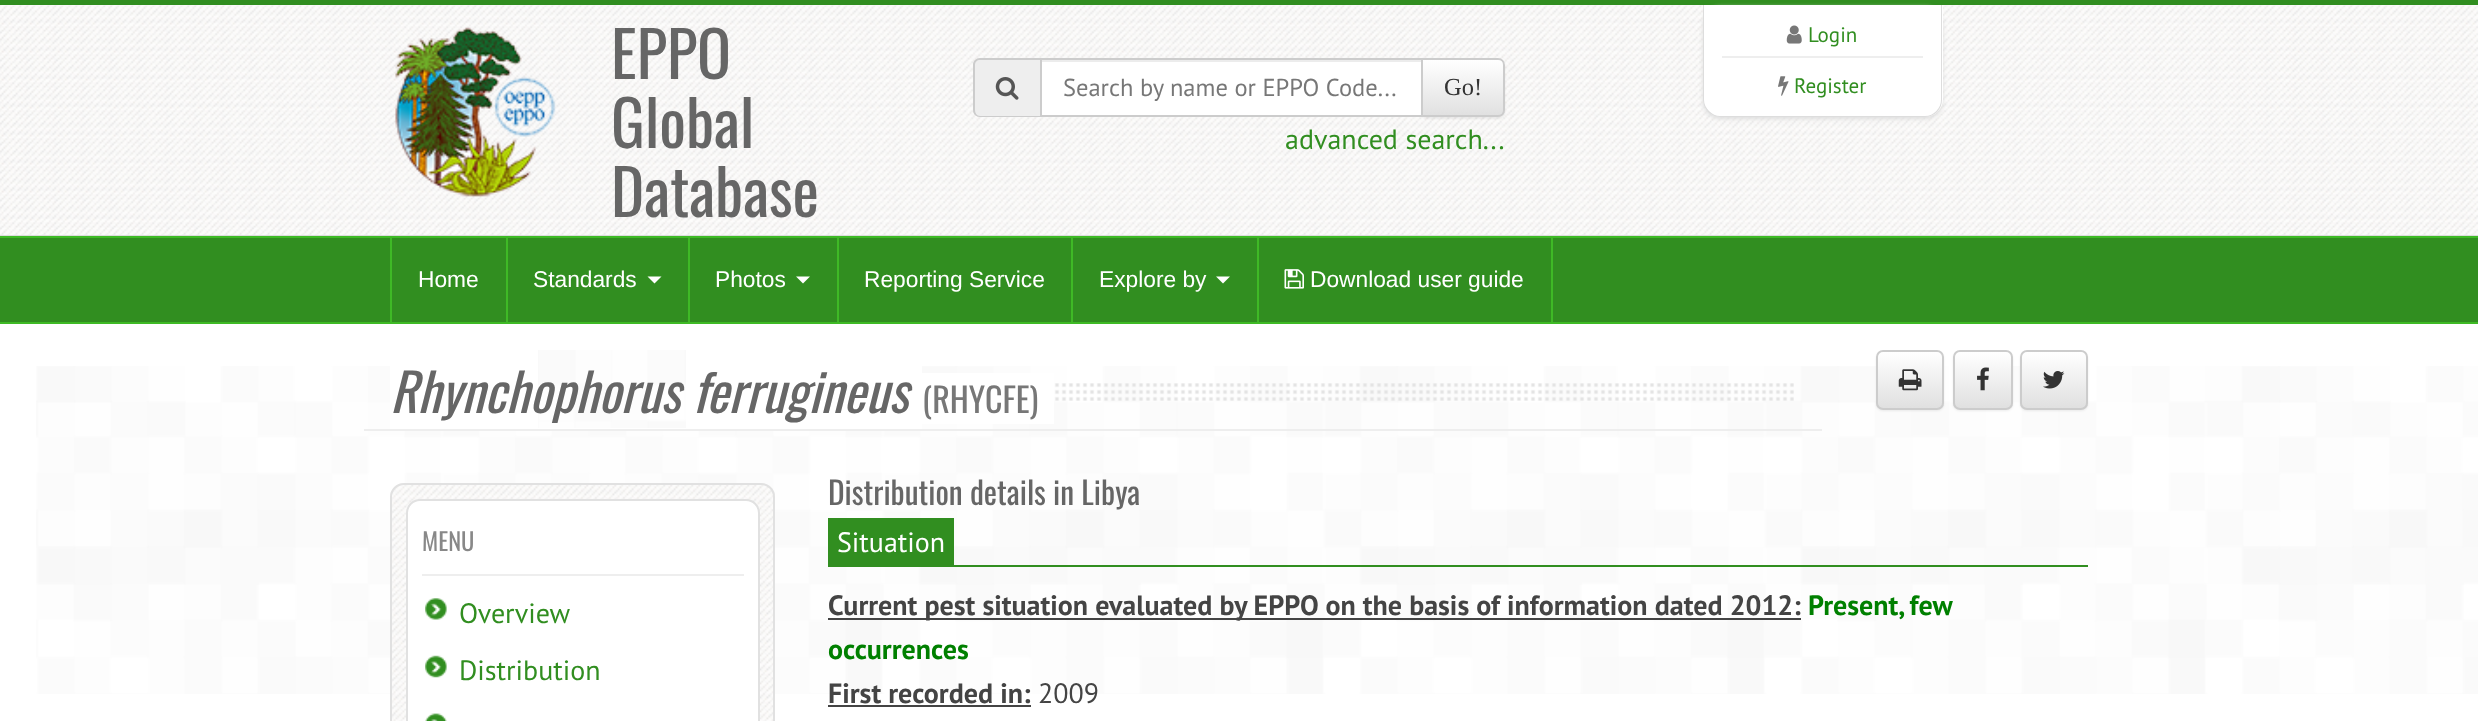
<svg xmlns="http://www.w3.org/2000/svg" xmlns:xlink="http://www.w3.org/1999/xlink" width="2478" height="721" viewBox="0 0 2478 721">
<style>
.cls-1{font:63px Oswald;fill:#666666}
.cls-2{font:21px PT Sans;fill:#318e20}
.cls-3{font:24.5px PT Sans;fill:#777777}
.cls-4{font:24.5px Liberation Serif;fill:#333333}
.cls-5{font:28px PT Sans;fill:#318e20}
.cls-6{font:22.75px Liberation Sans;fill:#ffffff}
.cls-7{font:italic 52.5px Oswald;fill:#666666}
.cls-8{font:34px Oswald;fill:#777777}
.cls-9{font:24.5px Oswald;fill:#888888}
.cls-10{font:31.5px Oswald;fill:#666666}
.cls-11{font:28px PT Sans;fill:#ffffff}
.cls-12{font:bold 28px PT Sans;fill:#444444}
.cls-13{font:bold 28px PT Sans;fill:#008000}
.cls-14{font:28px PT Sans;fill:#444444}
</style>
<defs>
<clipPath id="clip1"><path d="M1421 58H1498C1502 58 1505 61 1505 65V110C1505 114 1502 117 1498 117H1421Z"/></clipPath>
<linearGradient id="g1" gradientUnits="userSpaceOnUse" x1="1463" y1="60" x2="1463" y2="116"><stop offset="0" stop-color="#ffffff"/><stop offset="1" stop-color="#e0e0e0"/></linearGradient>
<clipPath id="clip2"><rect x="1876" y="350" width="68" height="60" rx="7"/></clipPath>
<linearGradient id="g2" gradientUnits="userSpaceOnUse" x1="1910" y1="352" x2="1910" y2="408"><stop offset="0" stop-color="#ffffff"/><stop offset="1" stop-color="#e0e0e0"/></linearGradient>
<clipPath id="clip3"><rect x="1953" y="350" width="60" height="60" rx="7"/></clipPath>
<linearGradient id="g3" gradientUnits="userSpaceOnUse" x1="1983" y1="352" x2="1983" y2="408"><stop offset="0" stop-color="#ffffff"/><stop offset="1" stop-color="#e0e0e0"/></linearGradient>
<clipPath id="clip4"><rect x="2020" y="350" width="68" height="60" rx="7"/></clipPath>
<linearGradient id="g4" gradientUnits="userSpaceOnUse" x1="2054" y1="352" x2="2054" y2="408"><stop offset="0" stop-color="#ffffff"/><stop offset="1" stop-color="#e0e0e0"/></linearGradient>
</defs>
<rect width="100%" height="100%" fill="#ffffff"/>
<image xlink:href="image0.png" x="36" y="366" width="2442" height="328"/>
<rect fill="#318e20" x="0" y="0" width="2478" height="5"/>
<image xlink:href="image1.png" x="0" y="5" width="2478" height="230"/>
<rect fill="#dddddd" x="0" y="235" width="2478" height="1"/>
<image xlink:href="image2.png" x="395" y="27" width="161" height="170"/>
<rect fill="#dddddd" filter="blur(2px)" x="1703" y="7" width="240" height="112" rx="18"/>
<path fill="#ffffff" d="M1703 5H1943V99C1943 109 1935 117 1925 117H1721C1711 117 1703 109 1703 99Z"/>
<path fill="#dddddd" fill-rule="evenodd" d="M1703 5H1942V100C1942 109 1935 117 1925 117H1720C1711 117 1703 109 1703 100ZM1704 5H1941V100C1941 108 1934 116 1925 116H1720C1712 116 1704 108 1704 100Z"/>
<image xlink:href="image3.png" x="1786" y="25" width="16" height="19"/>
<rect fill="#eeeeee" x="1722" y="56" width="201" height="2"/>
<image xlink:href="image4.png" x="1778" y="76" width="11" height="20"/>
<path fill="#eeeeee" d="M980 58H1040V117H980C976 117 973 114 973 110V65C973 61 976 58 980 58Z"/>
<path fill="#cccccc" fill-rule="evenodd" d="M980 58H1040V117H980C976 117 973 114 973 110V65C973 61 976 58 980 58ZM980 60H1040V116H980C977 116 975 113 975 110V65C975 62 977 60 980 60Z"/>
<image xlink:href="image5.png" x="995" y="77" width="24" height="23"/>
<rect fill="#000000" fill-opacity="0.07" filter="blur(1px)" x="1421" y="60" width="84" height="59" rx="7"/>
<rect fill="#ffffff" x="1042" y="62" width="379" height="53"/>
<rect fill="#ececec" x="1041" y="60" width="380" height="2"/>
<g clip-path="url(#clip1)">
<rect fill="url(#g1)" x="1423" y="60" width="82" height="56"/>
</g>
<path fill="none" stroke="#cccccc" stroke-width="2" d="M1422 59H1498C1501.5 59 1504 61.5 1504 65V110C1504 113.5 1501.5 116 1498 116H1422Z"/>
<rect fill="none" stroke="#cccccc" stroke-width="2" x="1041" y="59" width="381" height="57"/>
<rect fill="#318e20" x="0" y="238" width="2478" height="84"/>
<rect fill="#3eba25" x="0" y="236" width="2478" height="2"/>
<rect fill="#3eba25" x="0" y="322" width="2478" height="2"/>
<rect fill="#3fb926" x="1551" y="238" width="2" height="84"/>
<rect fill="#3fb926" x="390" y="238" width="2" height="84"/>
<rect fill="#3fb926" x="506" y="238" width="2" height="84"/>
<path fill="#ffffff" d="M647.5 276.5H661.5L654.5 283.5Z"/>
<rect fill="#3fb926" x="688" y="238" width="2" height="84"/>
<path fill="#ffffff" d="M796 276.5H810L803 283.5Z"/>
<rect fill="#3fb926" x="837" y="238" width="2" height="84"/>
<rect fill="#3fb926" x="1071" y="238" width="2" height="84"/>
<path fill="#ffffff" d="M1216 276.5H1230L1223 283.5Z"/>
<rect fill="#3fb926" x="1257" y="238" width="2" height="84"/>
<image xlink:href="image6.png" x="1284" y="269" width="20" height="20"/>
<rect fill="#eeeeee" x="364" y="429" width="1458" height="2"/>
<image xlink:href="image7.png" x="1054" y="383" width="740" height="18"/>
<rect fill="#ffffff" x="390" y="366" width="532" height="63"/>
<image xlink:href="image8.png" x="538" y="350" width="148" height="78"/>
<rect fill="#ffffff" x="922" y="373" width="132" height="51"/>
<rect fill="#000000" fill-opacity="0.07" filter="blur(1px)" x="1876" y="352" width="68" height="59" rx="7"/>
<g clip-path="url(#clip2)">
<rect fill="url(#g2)" x="1876" y="352" width="68" height="56"/>
</g>
<path fill="#ffffff" fill-opacity="0.15" d="M1883 354H1937C1940 354 1942 356 1942 359V404V407C1942 406 1943 404 1943 403V357C1943 354 1941 352 1938 352H1883C1880 352 1878 354 1878 357V359C1878 356 1880 354 1883 354Z"/>
<rect fill="none" stroke="#cccccc" stroke-width="2" x="1877" y="351" width="66" height="58" rx="6"/>
<image xlink:href="image9.png" x="1898" y="369" width="24" height="22"/>
<rect fill="#000000" fill-opacity="0.07" filter="blur(1px)" x="1953" y="352" width="60" height="59" rx="7"/>
<g clip-path="url(#clip3)">
<rect fill="url(#g3)" x="1953" y="352" width="60" height="56"/>
</g>
<rect fill="none" stroke="#cccccc" stroke-width="2" x="1954" y="351" width="58" height="58" rx="6"/>
<image xlink:href="image10.png" x="1977" y="367" width="12" height="24"/>
<rect fill="#000000" fill-opacity="0.07" filter="blur(1px)" x="2020" y="352" width="68" height="59" rx="7"/>
<g clip-path="url(#clip4)">
<rect fill="url(#g4)" x="2020" y="352" width="68" height="56"/>
</g>
<rect fill="none" stroke="#cccccc" stroke-width="2" x="2021" y="351" width="66" height="58" rx="6"/>
<image xlink:href="image11.png" x="2043" y="371" width="22" height="18"/>
<image xlink:href="image12.png" x="390" y="483" width="385" height="238"/>
<rect fill="none" stroke="#e1e1e1" stroke-width="2" x="391" y="484" width="383" height="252" rx="13"/>
<rect fill="#ffffff" stroke="#e1e1e1" stroke-width="2" x="407" y="500" width="352" height="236" rx="13"/>
<rect fill="#eeeeee" x="422" y="574" width="322" height="2"/>
<image xlink:href="image13.png" x="425" y="598" width="22" height="22"/>
<image xlink:href="image14.png" x="425" y="655" width="22" height="23"/>
<image xlink:href="image15.png" x="425" y="713" width="22" height="8"/>
<rect fill="#318e20" x="954" y="565" width="1134" height="2"/>
<rect fill="#318e20" x="828" y="518" width="126" height="49"/>
<rect fill="#444444" x="828" y="618" width="973" height="2"/>
<rect fill="#444444" x="828" y="705" width="203" height="2"/>
<text class="cls-1"><tspan x="611" y="79">EPPO</tspan><tspan x="611" y="148">Global</tspan><tspan x="611" y="217">Database</tspan></text>
<text class="cls-2" x="1808" y="42">Login</text>
<text class="cls-2" x="1794" y="93">Register</text>
<text class="cls-3" x="1063" y="96">Search by name or EPPO Code...</text>
<text class="cls-4" x="1444" y="95">Go!</text>
<text class="cls-5" x="1285" y="149">advanced search...</text>
<text class="cls-6" x="418" y="287">Home</text>
<text class="cls-6" x="533" y="287">Standards</text>
<text class="cls-6" x="715" y="287">Photos</text>
<text class="cls-6" x="864" y="287">Reporting Service</text>
<text class="cls-6" x="1099" y="287">Explore by</text>
<text class="cls-6" x="1310" y="287">Download user guide</text>
<text class="cls-7" x="390" y="413">Rhynchophorus ferrugineus</text>
<text class="cls-8" x="922" y="413">(RHYCFE)</text>
<text class="cls-9" x="422" y="551">MENU</text>
<text class="cls-5" x="459" y="623">Overview</text>
<text class="cls-5" x="459" y="680">Distribution</text>
<text class="cls-10" x="828" y="505">Distribution details in Libya</text>
<text class="cls-11" x="837" y="552">Situation</text>
<text class="cls-12" x="828" y="615">Current pest situation evaluated by EPPO on the basis of information dated 2012:</text>
<text class="cls-13" x="1808" y="615" word-spacing="-1">Present, few</text>
<text class="cls-13" x="828" y="659">occurrences</text>
<text class="cls-12" x="828" y="703">First recorded in:</text>
<text class="cls-14" x="1038" y="703">2009</text>
</svg>
